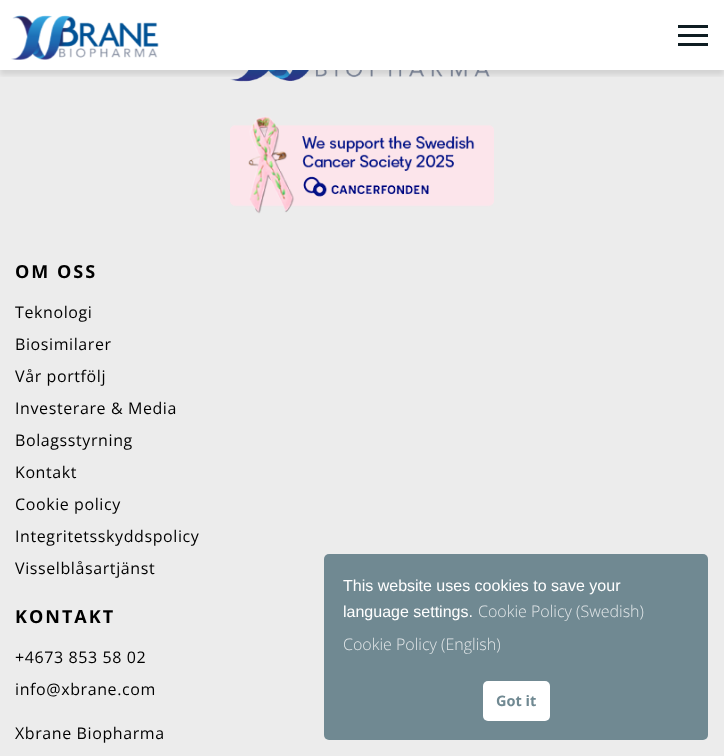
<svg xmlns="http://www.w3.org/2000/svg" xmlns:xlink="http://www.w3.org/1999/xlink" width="724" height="756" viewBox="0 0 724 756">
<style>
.cls-1{font:bold 18px Open Sans;letter-spacing:2px;fill:#000000}
.cls-2{font:16px Open Sans;letter-spacing:0.6px;fill:#000000}
.cls-3{font:16px Liberation Sans;fill:#ffffff}
.cls-4{font:300 16px Open Sans;fill:#e2e7e9}
.cls-5{font:bold 14.5px Open Sans;fill:#708992}
</style>
<defs>
<clipPath id="clip1"><rect x="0" y="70" width="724" height="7"/></clipPath>
</defs>
<rect width="100%" height="100%" fill="#ececec"/>
<rect fill="#ffffff" x="0" y="0" width="724" height="70"/>
<image xlink:href="image1.png" x="230" y="70" width="260" height="12"/>
<g clip-path="url(#clip1)">
<rect fill="#000000" fill-opacity="0.1" filter="blur(2.5px)" x="0" y="5" width="724" height="70"/>
</g>
<image xlink:href="image0.png" x="11" y="15" width="148" height="45"/>
<rect fill="#0e1d22" x="678" y="25" width="30" height="3"/>
<rect fill="#0e1d22" x="678" y="34" width="30" height="3"/>
<rect fill="#0e1d22" x="678" y="43" width="30" height="3"/>
<image xlink:href="image2.png" x="230" y="116" width="264" height="98"/>
<rect fill="#708992" x="324" y="554" width="384" height="186" rx="5"/>
<rect fill="#ffffff" x="483" y="681" width="67" height="40" rx="5"/>
<text class="cls-1" x="15" y="278">OM OSS</text>
<text class="cls-2" x="15" y="318">Teknologi</text>
<text class="cls-2" x="15" y="350">Biosimilarer</text>
<text class="cls-2" x="15" y="382">Vår portfölj</text>
<text class="cls-2" x="15" y="414">Investerare &amp; Media</text>
<text class="cls-2" x="15" y="446">Bolagsstyrning</text>
<text class="cls-2" x="15" y="478">Kontakt</text>
<text class="cls-2" x="15" y="510">Cookie policy</text>
<text class="cls-2" x="15" y="542">Integritetsskyddspolicy</text>
<text class="cls-2" x="15" y="574">Visselblåsartjänst</text>
<text class="cls-1" x="15" y="623">KONTAKT</text>
<text class="cls-2" x="15" y="663">+4673 853 58 02</text>
<text class="cls-2" x="15" y="695">info@xbrane.com</text>
<text class="cls-2" x="15" y="739">Xbrane Biopharma</text>
<text class="cls-3"><tspan x="343" y="591">This website uses cookies to save your</tspan><tspan x="343" y="617">language settings.</tspan></text>
<text class="cls-4" x="478" y="617">Cookie Policy (Swedish)</text>
<text class="cls-4" x="343" y="650">Cookie Policy (English)</text>
<text class="cls-5" x="496" y="706">Got it</text>
</svg>
